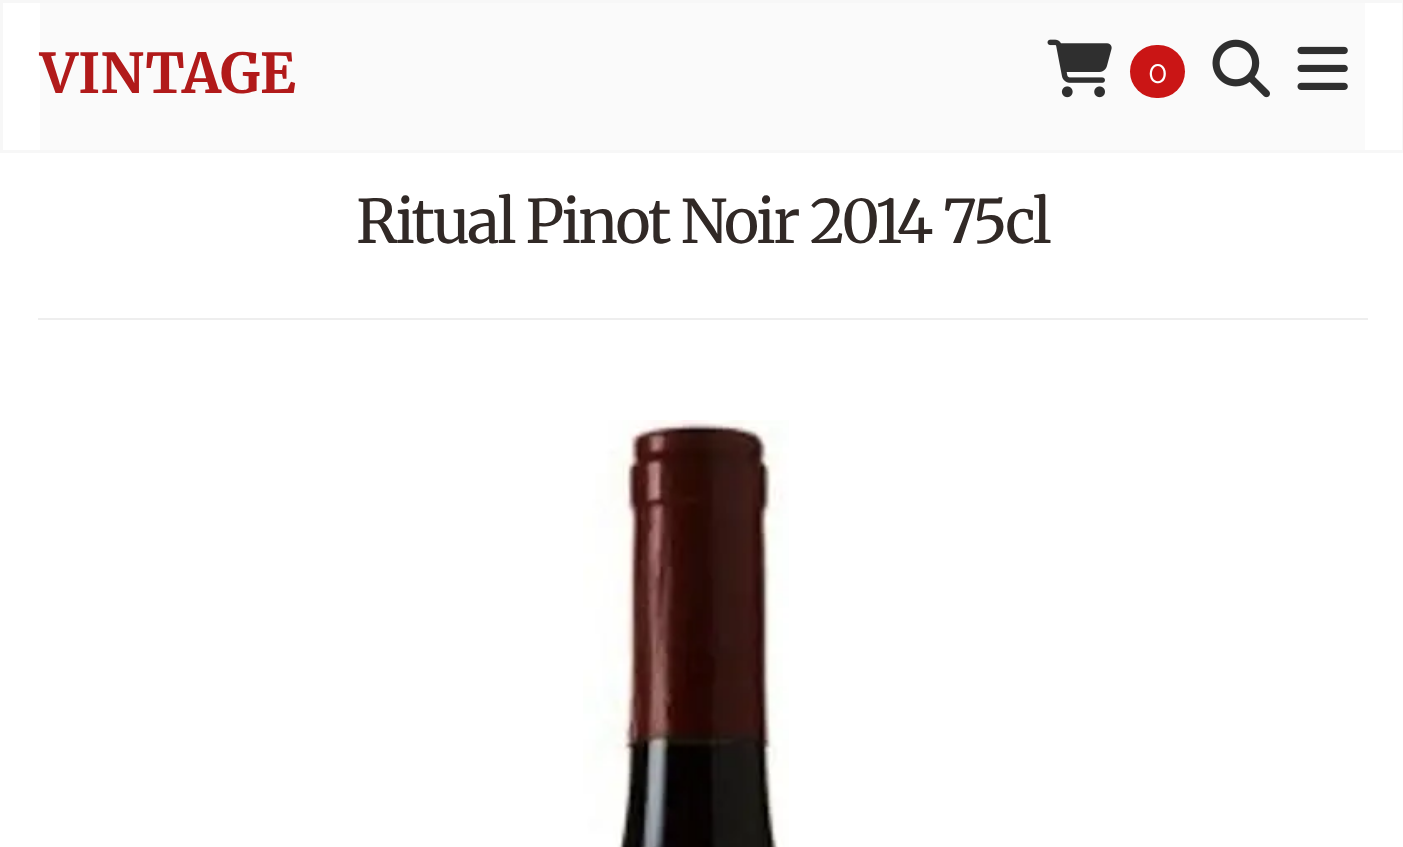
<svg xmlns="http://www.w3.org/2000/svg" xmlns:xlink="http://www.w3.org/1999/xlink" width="1403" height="847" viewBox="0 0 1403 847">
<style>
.cls-1{font:bold 55px Merriweather;fill:#b11a1a}
.cls-2{font:32px Raleway;fill:#ffffff}
.cls-3{font:60px Merriweather;letter-spacing:-2.5px;fill:#312926}
</style>
<rect width="100%" height="100%" fill="#ffffff"/>
<rect fill="none" stroke="#f7f7f7" stroke-width="3" x="1.5" y="1.5" width="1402" height="150"/>
<rect fill="#fafafa" x="40" y="3" width="1325" height="147"/>
<image xlink:href="image0.png" x="1047" y="39" width="65" height="59"/>
<rect fill="#ca1515" x="1130" y="45" width="55" height="53" rx="26.5"/>
<image xlink:href="image1.png" x="1212" y="39" width="58" height="59"/>
<image xlink:href="image2.png" x="1297" y="46" width="51" height="44"/>
<rect fill="#eeeeee" x="38" y="318" width="1330" height="2"/>
<image xlink:href="image3.png" x="583" y="420" width="206" height="427"/>
<text class="cls-1" x="40" y="93">VINTAGE</text>
<text class="cls-2" x="1148" y="83">0</text>
<text class="cls-3" x="356" y="243">Ritual Pinot Noir 2014 75cl</text>
</svg>
